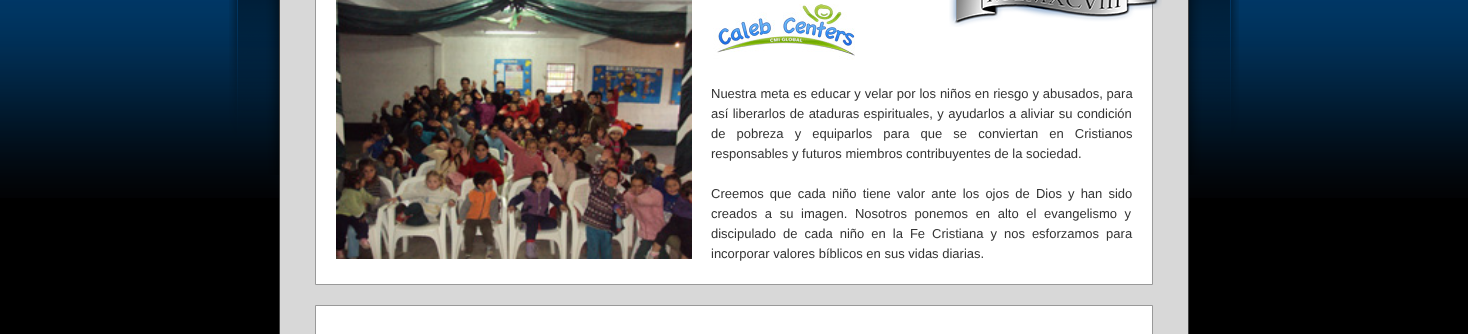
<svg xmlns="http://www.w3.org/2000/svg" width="1468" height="334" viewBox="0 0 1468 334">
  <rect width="100%" height="100%" fill="#000"/>
  <image x="0" y="0" width="1468" height="198" href="img/1.png"/>
  <image x="229" y="0" width="50" height="175" href="img/2.png"/>
  <path d="M280 0h908v334H280z" fill="#d8d8d8"/>
  <path d="M315.5 -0.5h837v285H315.5z" fill="#fff" stroke="#999"/>
  <image x="949" y="0" width="213" height="27" href="img/3.png"/>
  <path d="M1188 0h1v334H1188z" fill="#434343"/>
  <path d="M279 0h1v334H279z" fill="#434343"/>
  <image x="336" y="0" width="356" height="259" href="img/4.png"/>
  <image x="713" y="4" width="142" height="56" href="img/5.png"/>
  <path d="M315.5 305.5h837v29H315.5z" fill="#fff" stroke="#999"/>
  <image x="1189" y="0" width="50" height="175" href="img/6.png"/>
  <g font-family="Liberation Sans" font-size="13" fill="#333">
    <text x="711" y="98" word-spacing="0.25">Nuestra meta es educar y velar por los niños en riesgo y abusados, para</text>
    <text x="711" y="118" word-spacing="0.75">así liberarlos de ataduras espirituales, y ayudarlos a aliviar su condición</text>
    <text x="711" y="138" word-spacing="7.5">de pobreza y equiparlos para que se conviertan en Cristianos</text>
    <text x="711" y="158">responsables y futuros miembros contribuyentes de la sociedad.</text>
    <text x="711" y="198" word-spacing="2.5">Creemos que cada niño tiene valor ante los ojos de Dios y han sido</text>
    <text x="711" y="218" word-spacing="4">creados a su imagen. Nosotros ponemos en alto el evangelismo y</text>
    <text x="711" y="238" word-spacing="3.4">discipulado de cada niño en la Fe Cristiana y nos esforzamos para</text>
    <text x="711" y="258">incorporar valores bíblicos en sus vidas diarias.</text>
  </g>
</svg>
